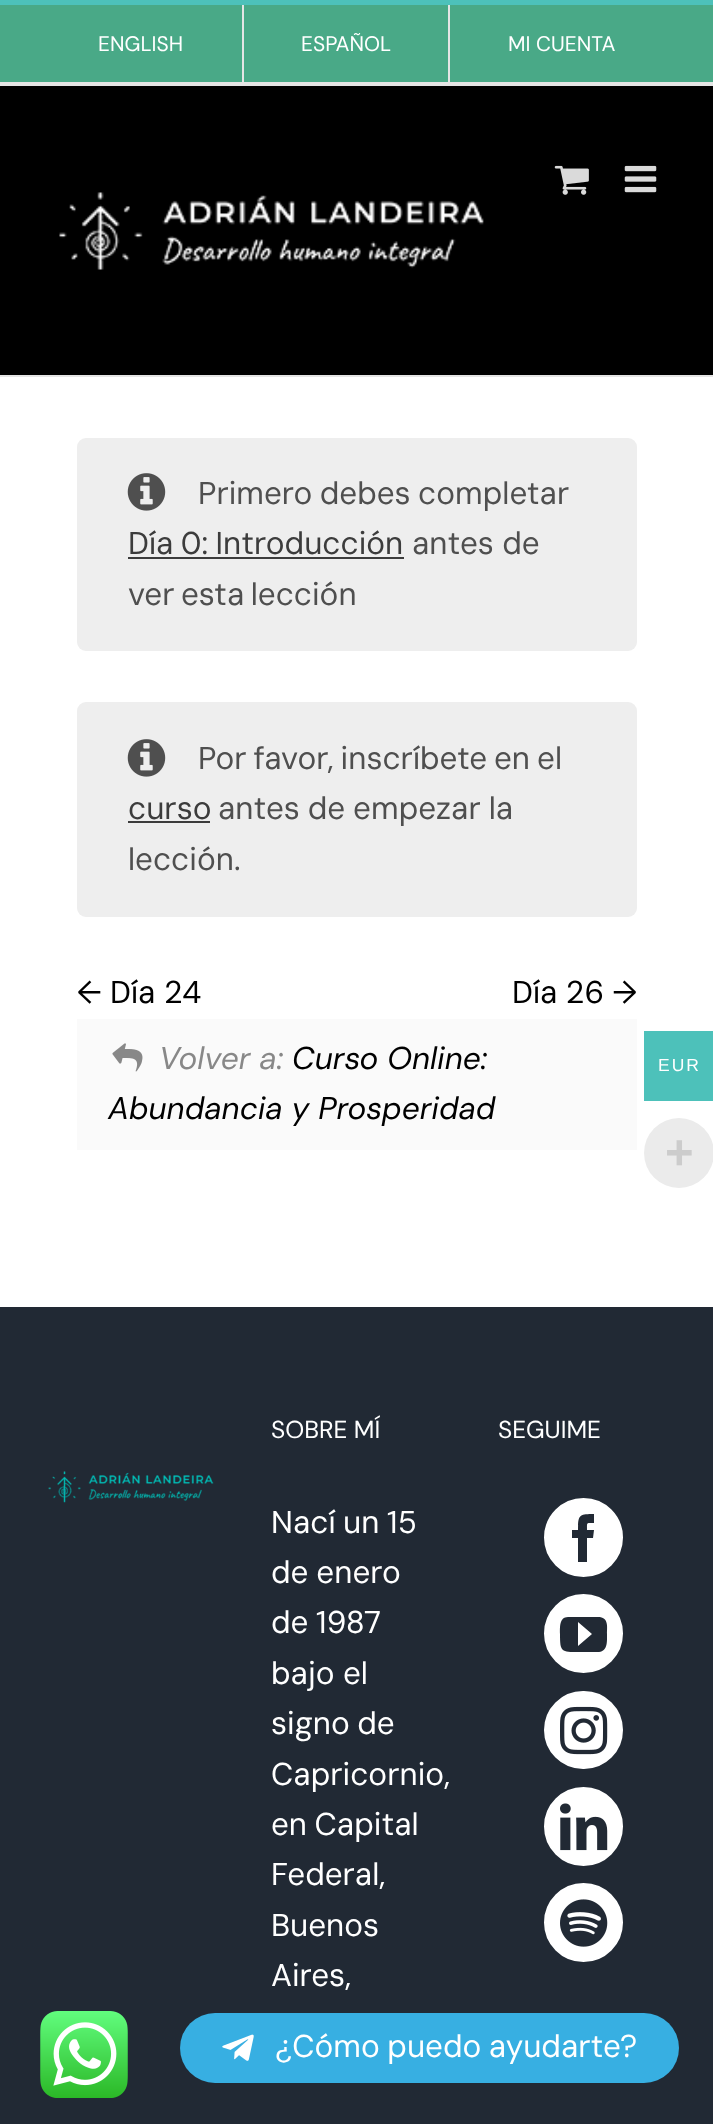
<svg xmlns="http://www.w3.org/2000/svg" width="713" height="2124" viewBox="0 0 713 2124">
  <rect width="100%" height="100%" fill="#fff"/>
  <path d="M0 5h713v77H0z" fill="#49a987"/>
  <path d="M0 0h713v5H0z" fill="#4dc1ba"/>
  <path d="M0 82h713v4H0z" fill="#e5e5e5"/>
  <path d="M242 5h2v77H242z" fill="#e5e5e5"/>
  <path d="M448 5h2v77H448z" fill="#e5e5e5"/>
  <path d="M0 86h713v289H0z" fill="#000"/>
  <path d="M0 375h713v2H0z" fill="#e5e5e5"/>
  <image x="554" y="165" width="35" height="30" href="img/1.png"/>
  <image x="624" y="165" width="33" height="28" href="img/2.png"/>
  <image x="59" y="192" width="425" height="78" href="img/3.png"/>
  <rect x="77" y="438" width="560" height="213" rx="9" fill="#eee"/>
  <image x="127" y="473" width="39" height="38" href="img/4.png"/>
  <path d="M128 557h276v2H128z" fill="#3c3c3c"/>
  <rect x="77" y="702" width="560" height="215" rx="9" fill="#eee"/>
  <image x="127" y="739" width="39" height="38" href="img/4.png"/>
  <path d="M128 821h82v2H128z" fill="#3c3c3c"/>
  <path d="M77 1019h560v131H77z" fill="#fafafa"/>
  <image x="112" y="1043" width="31" height="29" href="img/5.png"/>
  <path d="M0 1307h713v817H0z" fill="#212934"/>
  <circle cx="583.5" cy="1537.5" r="38.5" fill="#fff" stroke="#fff" stroke-width="2"/>
  <path d="M587 1562H578V1538H572V1530H578C578 1515 579 1514 594 1514V1523C586 1523 587 1522 587 1530H594L593 1538H587Z" fill="#212934"/>
  <circle cx="583.5" cy="1633.5" r="38.5" fill="#fff" stroke="#fff" stroke-width="2"/>
  <path d="M598 1617H568C559 1617 560 1628 560 1634C560 1652 561 1652 579 1652H599C608 1651 607 1641 607 1634C607 1627 609 1617 598 1617ZM578 1646V1622L592 1634Z" fill="#212934"/>
  <rect x="545" y="1692" width="77" height="76" rx="38" fill="#fff" stroke="#fff" stroke-width="2"/>
  <image x="560" y="1706" width="48" height="49" href="img/6.png"/>
  <circle cx="583.5" cy="1826.5" r="38.5" fill="#fff" stroke="#fff" stroke-width="2"/>
  <image x="560" y="1803" width="48" height="48" href="img/7.png"/>
  <circle cx="583.5" cy="1922.5" r="38.5" fill="#fff" stroke="#fff" stroke-width="2"/>
  <image x="560" y="1899" width="48" height="48" href="img/8.png"/>
  <image x="48" y="1471" width="166" height="32" href="img/9.png"/>
  <path d="M644 1031h69v70H644z" fill="#4dc1ba"/>
  <circle cx="679" cy="1153" r="35" fill="#ebebeb"/>
  <image x="40" y="2011" width="88" height="87" href="img/10.png"/>
  <rect x="180" y="2013" width="499" height="70" rx="35" fill="#37afe2"/>
  <image x="222" y="2034" width="32" height="27" href="img/11.png"/>
  <g font-family="'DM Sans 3'" font-size="21" fill="#fff">
    <text x="98" y="51">ENGLISH</text>
    <text x="301" y="51">ESPAÑOL</text>
    <text x="508" y="51">MI CUENTA</text>
  </g>
  <text x="198" y="504" word-spacing="-1" font-family="DM Sans" font-size="31.5" fill="#4f4f4f">Primero debes completar</text>
  <text x="128" y="554" word-spacing="-1" font-family="DM Sans" font-size="31.5" fill="#3c3c3c">Día 0: Introducción</text>
  <g font-family="DM Sans" font-size="31.5" fill="#4f4f4f">
    <text x="412" y="554">antes de</text>
    <text x="128" y="605" word-spacing="-2">ver esta lección</text>
    <text x="198" y="769" word-spacing="-1.5">Por favor, inscríbete en el</text>
  </g>
  <text x="128" y="819" font-family="DM Sans" font-size="31.5" fill="#3c3c3c">curso</text>
  <g font-family="DM Sans" font-size="31.5" fill="#4f4f4f">
    <text x="218" y="819" word-spacing="-0.5">antes de empezar la</text>
    <text x="128" y="870">lección.</text>
  </g>
  <g font-family="DM Sans" font-size="31.5" fill="#000">
    <text x="77" y="1003">← Día 24</text>
    <text x="512" y="1003">Día 26 →</text>
  </g>
  <text x="159" y="1069" font-family="DM Sans" font-size="31.5" font-style="italic" fill="#888">Volver a:</text>
  <g font-family="DM Sans" font-size="31.5" font-style="italic" fill="#000">
    <text x="292" y="1069">Curso Online:</text>
    <text x="108" y="1119">Abundancia y Prosperidad</text>
  </g>
  <text x="271" y="1438" font-family="'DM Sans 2'" font-size="24.5" fill="#fff">SOBRE MÍ</text>
  <g font-family="DM Sans" font-size="31.5" fill="#fff">
    <text x="271" y="1533" word-spacing="-1">Nací un 15</text>
    <text x="271" y="1583" word-spacing="-0.5">de enero</text>
    <text x="271" y="1633" word-spacing="-1">de 1987</text>
    <text x="271" y="1684">bajo el</text>
    <text x="271" y="1734" word-spacing="-1">signo de</text>
    <text x="271" y="1785">Capricornio,</text>
    <text x="271" y="1835" word-spacing="-1">en Capital</text>
    <text x="271" y="1885">Federal,</text>
    <text x="271" y="1936">Buenos</text>
    <text x="271" y="1986">Aires,</text>
  </g>
  <text x="498" y="1438" font-family="'DM Sans 2'" font-size="24.5" fill="#fff">SEGUIME</text>
  <text x="658" y="1071" font-family="Liberation Sans" font-size="17.5" letter-spacing="2" fill="#fff">EUR</text>
  <text x="665" y="1169" font-family="Liberation Sans" font-size="49" font-weight="bold" fill="#ccc">+</text>
  <text x="275" y="2057" word-spacing="-1" font-family="DM Sans" font-size="31.5" fill="#fff">¿Cómo puedo ayudarte?</text>
</svg>
